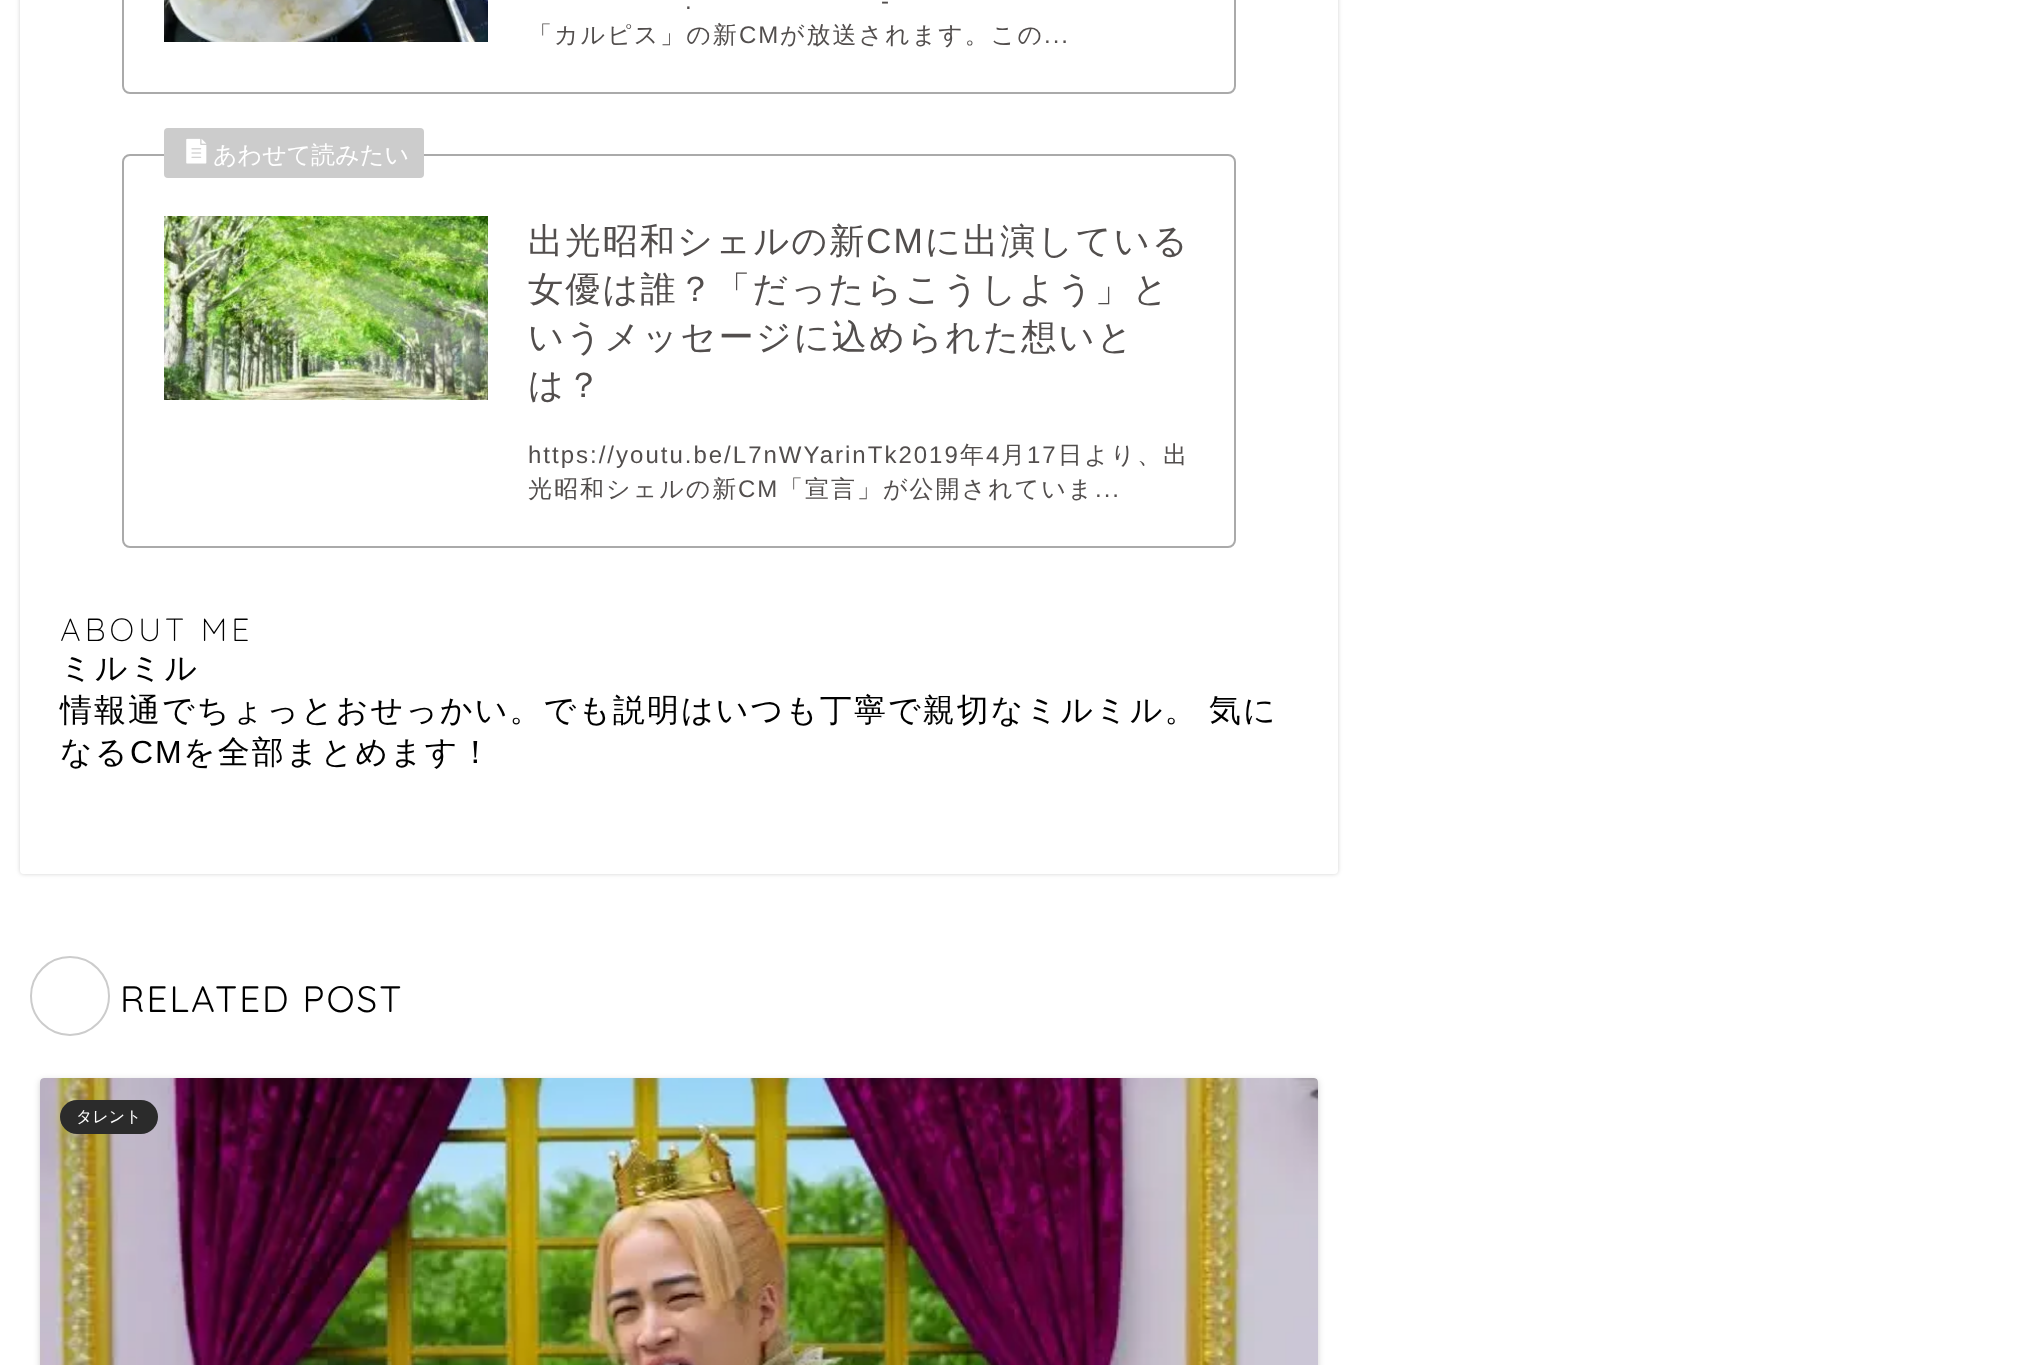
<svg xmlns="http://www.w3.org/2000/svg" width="2026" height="1365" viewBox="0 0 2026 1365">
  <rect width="100%" height="100%" fill="#fff"/>
  <rect x="20" y="-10" width="1318" height="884" rx="4" fill="#0000002e" filter="blur(2px)"/>
  <rect x="20" y="-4" width="1318" height="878" rx="4" fill="#fff"/>
  <rect x="123" y="-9" width="1112" height="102" rx="7" fill="none" stroke="#aaa" stroke-width="2"/>
  <image x="164" y="0" width="324" height="42" href="img/1.png"/>
  <rect x="123" y="155" width="1112" height="392" rx="7" fill="none" stroke="#aaa" stroke-width="2"/>
  <rect x="164" y="128" width="260" height="50" rx="4" fill="#ccc"/>
  <image x="186" y="138" width="21" height="26" href="img/2.png"/>
  <image x="164" y="216" width="324" height="184" href="img/3.png"/>
  <circle cx="70" cy="996" r="39" fill="none" stroke="#ccc" stroke-width="2"/>
  <rect x="40" y="1080" width="1278" height="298" rx="4" fill="#0000002e" filter="blur(3px)"/>
  <image x="40" y="1078" width="1278" height="287" href="img/4.png"/>
  <rect x="60" y="1100" width="98" height="34" rx="17" fill="#2b2b2b"/>
  <g font-family="Liberation Sans" font-size="24" letter-spacing="2" fill="#524e4d">
    <text x="881" y="9">-</text>
    <text x="685" y="9">.</text>
  </g>
  <text x="528" y="43" font-family="WenQuanYi Zen Hei" font-size="24" font-weight="500" letter-spacing="2" fill="#524e4d">「カルピス」の新</text>
  <text x="739" y="43" font-family="Liberation Sans" font-size="24" letter-spacing="2" fill="#524e4d">CM</text>
  <text x="780" y="43" font-family="WenQuanYi Zen Hei" font-size="24" font-weight="500" letter-spacing="2" fill="#524e4d">が放送されます。この</text>
  <text x="1044" y="43" font-family="Liberation Sans" font-size="24" letter-spacing="2" fill="#524e4d">...</text>
  <text x="213" y="163" font-family="WenQuanYi Zen Hei" font-size="24" font-weight="500" fill="#fff">あわせて読みたい</text>
  <text x="528" y="253" font-family="WenQuanYi Zen Hei" font-size="35.25" font-weight="500" letter-spacing="2" fill="#524e4d">出光昭和シェルの新</text>
  <text x="866" y="253" font-family="Liberation Sans" font-size="35.25" letter-spacing="2" fill="#524e4d">CM</text>
  <g font-family="WenQuanYi Zen Hei" font-size="35.25" font-weight="500" letter-spacing="2" fill="#524e4d">
    <text x="925" y="253">に出演している</text>
    <text x="528" y="301">女優は誰？「だったらこうしよう」と</text>
    <text x="528" y="349">いうメッセージに込められた想いと</text>
    <text x="528" y="397">は？</text>
  </g>
  <text x="528" y="463" font-family="Liberation Sans" font-size="24" letter-spacing="2" fill="#524e4d">https://youtu.be/L7nWYarinTk2019</text>
  <text x="960" y="463" font-family="WenQuanYi Zen Hei" font-size="24" font-weight="500" letter-spacing="2" fill="#524e4d">年</text>
  <text x="986" y="463" font-family="Liberation Sans" font-size="24" letter-spacing="2" fill="#524e4d">4</text>
  <text x="1001" y="463" font-family="WenQuanYi Zen Hei" font-size="24" font-weight="500" letter-spacing="2" fill="#524e4d">月</text>
  <text x="1027" y="463" font-family="Liberation Sans" font-size="24" letter-spacing="2" fill="#524e4d">17</text>
  <g font-family="WenQuanYi Zen Hei" font-size="24" font-weight="500" letter-spacing="2" fill="#524e4d">
    <text x="1058" y="463">日より、出</text>
    <text x="528" y="497">光昭和シェルの新</text>
  </g>
  <text x="738" y="497" font-family="Liberation Sans" font-size="24" letter-spacing="2" fill="#524e4d">CM</text>
  <text x="779" y="497" font-family="WenQuanYi Zen Hei" font-size="24" font-weight="500" letter-spacing="2" fill="#524e4d">「宣言」が公開されていま</text>
  <text x="1095" y="497" font-family="Liberation Sans" font-size="24" letter-spacing="2" fill="#524e4d">...</text>
  <text x="60" y="641" font-family="Quicksand" font-size="32" font-weight="300" letter-spacing="4" fill="#000">ABOUT ME</text>
  <g font-family="WenQuanYi Zen Hei" font-size="32" font-weight="500" letter-spacing="2" fill="#000">
    <text x="60" y="679">ミルミル</text>
    <text x="60" y="721" word-spacing="-1">情報通でちょっとおせっかい。でも説明はいつも丁寧で親切なミルミル。 気に</text>
    <text x="60" y="763">なる</text>
  </g>
  <text x="130" y="763" font-family="Liberation Sans" font-size="32" letter-spacing="2" fill="#000">CM</text>
  <text x="183" y="763" font-family="WenQuanYi Zen Hei" font-size="32" font-weight="500" letter-spacing="2" fill="#000">を全部まとめます！</text>
  <text x="120" y="1012" font-family="Quicksand" font-size="36.75" letter-spacing="2" fill="#000">RELATED POST</text>
  <text x="76" y="1122" font-family="WenQuanYi Zen Hei" font-size="16" font-weight="500" fill="#fff">タレント</text>
</svg>
